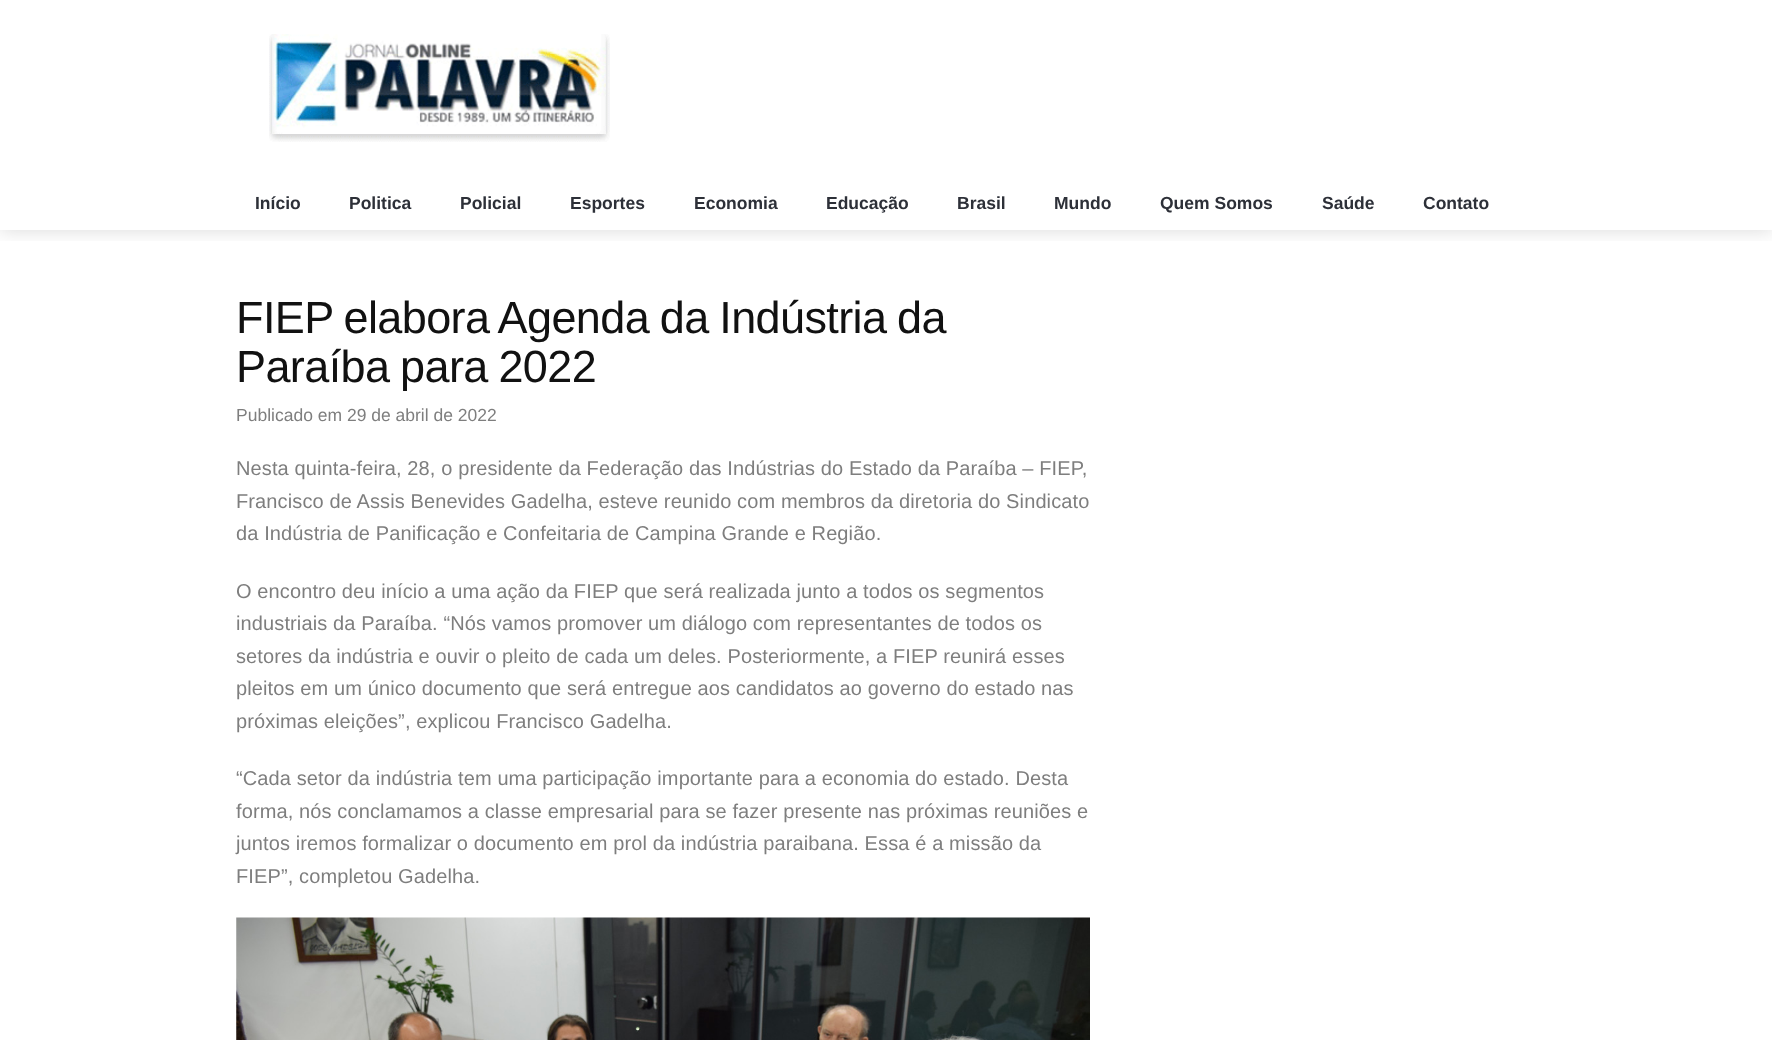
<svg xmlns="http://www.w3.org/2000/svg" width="1772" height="1040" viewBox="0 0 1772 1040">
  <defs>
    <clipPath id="clip1"><path d="M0 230h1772v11H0z"/></clipPath>
    <clipPath id="clip2"><path d="M236 293h854v98H236z"/></clipPath>
  </defs>
  <rect width="100%" height="100%" fill="#fff"/>
  <g clip-path="url(#clip1)">
    <path d="M0 0h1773v230H0z" fill="#00000026" filter="blur(9.5px)"/>
  </g>
  <image x="269" y="34" width="341" height="108" href="img/1.png"/>
  <image x="236" y="917" width="854" height="123" href="img/2.png"/>
  <g font-family="Liberation Sans" font-size="17.5" font-weight="bold" fill="#2d3038">
    <text x="255" y="209">Início</text>
    <text x="349" y="209">Politica</text>
    <text x="460" y="209">Policial</text>
    <text x="570" y="209">Esportes</text>
    <text x="694" y="209">Economia</text>
    <text x="826" y="209">Educação</text>
    <text x="957" y="209">Brasil</text>
    <text x="1054" y="209">Mundo</text>
    <text x="1160" y="209">Quem Somos</text>
    <text x="1322" y="209">Saúde</text>
    <text x="1423" y="209">Contato</text>
  </g>
  <text x="236" y="333" word-spacing="-1.25" font-family="Liberation Sans" font-size="45" letter-spacing="-0.6" fill="#111">FIEP elabora Agenda da Indústria da</text>
  <g clip-path="url(#clip2)">
    <text x="236" y="382" word-spacing="-1.25" font-family="Liberation Sans" font-size="45" letter-spacing="-0.6" fill="#111">Paraíba para 2022</text>
  </g>
  <text x="236" y="421" font-family="Liberation Sans" font-size="17.5" fill="#7e7e7e">Publicado em 29 de abril de 2022</text>
  <g font-family="Liberation Sans" font-size="20" letter-spacing="0.12" fill="#7e7e7e">
    <text x="236" y="475">Nesta quinta-feira, 28, o presidente da Federação das Indústrias do Estado da Paraíba – FIEP,</text>
    <text x="236" y="508">Francisco de Assis Benevides Gadelha, esteve reunido com membros da diretoria do Sindicato</text>
    <text x="236" y="540">da Indústria de Panificação e Confeitaria de Campina Grande e Região.</text>
    <text x="236" y="598">O encontro deu início a uma ação da FIEP que será realizada junto a todos os segmentos</text>
    <text x="236" y="630">industriais da Paraíba. “Nós vamos promover um diálogo com representantes de todos os</text>
    <text x="236" y="663">setores da indústria e ouvir o pleito de cada um deles. Posteriormente, a FIEP reunirá esses</text>
    <text x="236" y="695">pleitos em um único documento que será entregue aos candidatos ao governo do estado nas</text>
    <text x="236" y="728">próximas eleições”, explicou Francisco Gadelha.</text>
    <text x="236" y="785">“Cada setor da indústria tem uma participação importante para a economia do estado. Desta</text>
    <text x="236" y="818">forma, nós conclamamos a classe empresarial para se fazer presente nas próximas reuniões e</text>
    <text x="236" y="850">juntos iremos formalizar o documento em prol da indústria paraibana. Essa é a missão da</text>
    <text x="236" y="883">FIEP”, completou Gadelha.</text>
  </g>
</svg>
